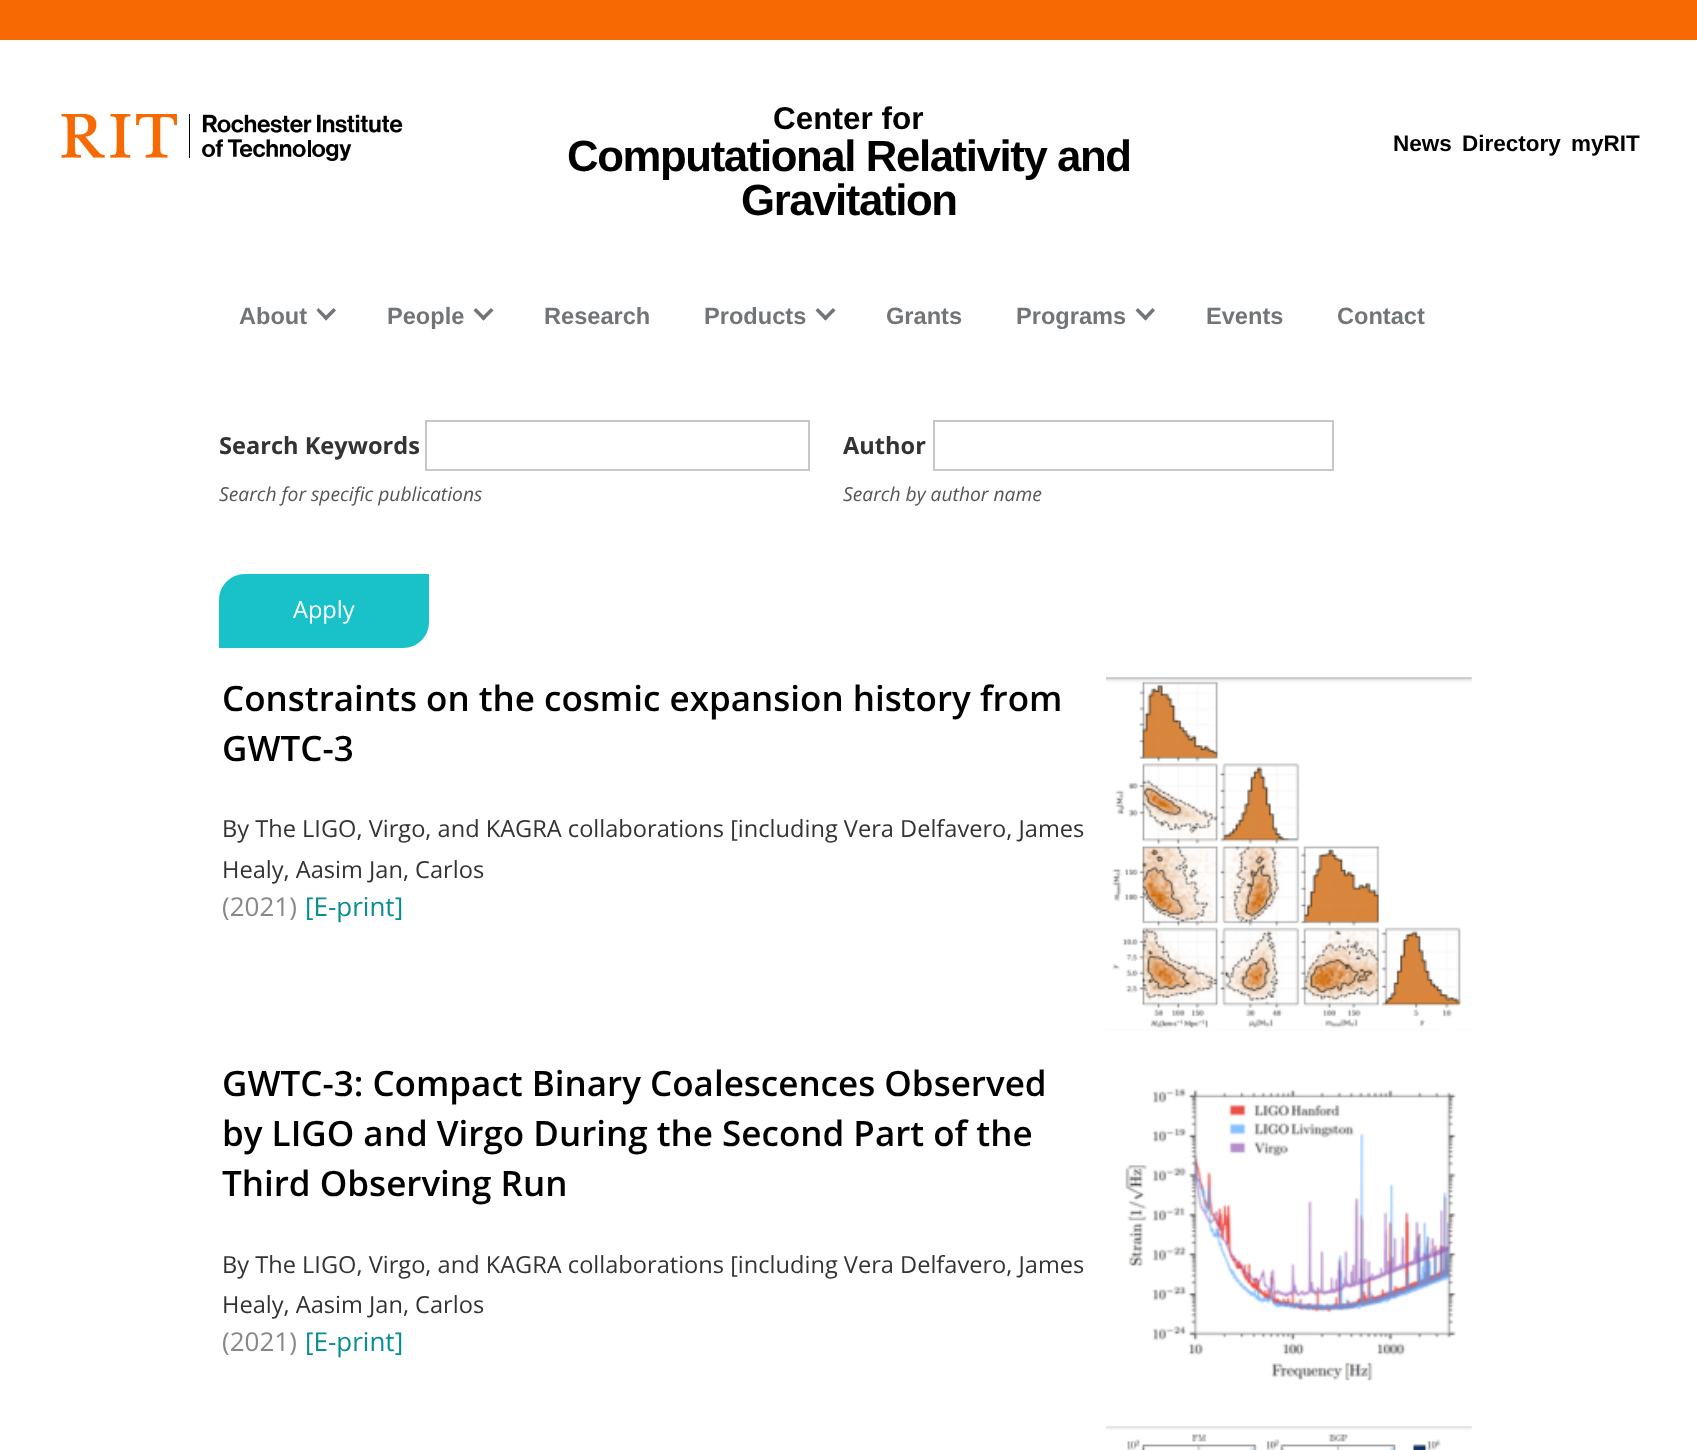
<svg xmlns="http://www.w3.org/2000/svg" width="1697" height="1450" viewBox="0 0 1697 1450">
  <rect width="100%" height="100%" fill="#fff"/>
  <path d="M0 0h1697v40H0z" fill="#f76902"/>
  <image x="61" y="114" width="342" height="47" href="img/1.png"/>
  <path d="M336 310.5L326 320.5L323.5 318L333.5 308Z" fill="#727578"/>
  <path d="M328.5 318L326 320.5L316.5 310.5L318.5 308Z" fill="#727578"/>
  <path d="M493.5 310.5L483.5 320.5L481 318L491 308Z" fill="#727578"/>
  <path d="M486 318L483.5 320.5L473.5 310.5L476 308Z" fill="#727578"/>
  <path d="M835.5 310.5L825.5 320.5L823 318L833 308Z" fill="#727578"/>
  <path d="M828 318L825.5 320.5L815.5 310.5L818 308Z" fill="#727578"/>
  <path d="M1155 310.5L1145.5 320.5L1143 318L1152.5 308Z" fill="#727578"/>
  <path d="M1148 318L1145.5 320.5L1135.5 310.5L1138 308Z" fill="#727578"/>
  <path d="M426 421h383v49H426z" fill="none" stroke="#c7c7c7" stroke-width="2"/>
  <path d="M934 421h399v49H934z" fill="none" stroke="#c7c7c7" stroke-width="2"/>
  <path d="M245 574H429V622C429 636.5 417.5 648 403 648H219V600C219 585.5 230.5 574 245 574Z" fill="#19c2c8"/>
  <image x="1106" y="677" width="366" height="354" href="img/2.png"/>
  <image x="1125" y="1088" width="331" height="293" href="img/3.png"/>
  <image x="1106" y="1426" width="366" height="24" href="img/4.png"/>
  <text x="773" y="129" font-family="Liberation Sans" font-size="31.5" font-weight="bold" fill="#000">Center for</text>
  <g font-family="Liberation Sans" font-size="43.75" font-weight="bold" letter-spacing="-1.4" fill="#000">
    <text x="567" y="171">Computational Relativity and</text>
    <text x="741" y="215">Gravitation</text>
  </g>
  <g font-family="Liberation Sans" font-size="22.5" font-weight="bold" fill="#000">
    <text x="1393" y="151">News</text>
    <text x="1462" y="151">Directory</text>
    <text x="1571" y="151">myRIT</text>
  </g>
  <g font-family="Liberation Sans" font-size="23.6" font-weight="bold" fill="#727578">
    <text x="239" y="324">About</text>
    <text x="387" y="324">People</text>
    <text x="544" y="324">Research</text>
    <text x="704" y="324">Products</text>
    <text x="886" y="324">Grants</text>
    <text x="1016" y="324">Programs</text>
    <text x="1206" y="324">Events</text>
    <text x="1337" y="324">Contact</text>
  </g>
  <text x="219" y="454" font-family="Open Sans" font-size="23.6" font-weight="bold" fill="#333">Search Keywords</text>
  <text x="219" y="501" font-family="Open Sans" font-size="19.25" font-style="italic" fill="#555">Search for specific publications</text>
  <text x="843" y="454" font-family="Open Sans" font-size="23.6" font-weight="bold" fill="#333">Author</text>
  <text x="843" y="501" font-family="Open Sans" font-size="19.25" font-style="italic" fill="#555">Search by author name</text>
  <text x="293" y="618" font-family="Open Sans" font-size="23.6" fill="#fff">Apply</text>
  <g font-family="Open Sans" font-size="35" font-weight="600" fill="#000">
    <text x="222" y="711">Constraints on the cosmic expansion history from</text>
    <text x="222" y="761">GWTC-3</text>
  </g>
  <g font-family="Open Sans" font-size="23.6" fill="#333">
    <text x="222" y="837">By The LIGO, Virgo, and KAGRA collaborations [including Vera Delfavero, James</text>
    <text x="222" y="878">Healy, Aasim Jan, Carlos</text>
  </g>
  <text x="222" y="916" font-family="Open Sans" font-size="26" fill="#888">(2021)</text>
  <text x="305" y="916" font-family="Open Sans" font-size="26" fill="#078d92">[E-print]</text>
  <g font-family="Open Sans" font-size="35" font-weight="600" fill="#000">
    <text x="222" y="1096">GWTC-3: Compact Binary Coalescences Observed</text>
    <text x="222" y="1146">by LIGO and Virgo During the Second Part of the</text>
    <text x="222" y="1196">Third Observing Run</text>
  </g>
  <g font-family="Open Sans" font-size="23.6" fill="#333">
    <text x="222" y="1273">By The LIGO, Virgo, and KAGRA collaborations [including Vera Delfavero, James</text>
    <text x="222" y="1313">Healy, Aasim Jan, Carlos</text>
  </g>
  <text x="222" y="1351" font-family="Open Sans" font-size="26" fill="#888">(2021)</text>
  <text x="305" y="1351" font-family="Open Sans" font-size="26" fill="#078d92">[E-print]</text>
</svg>
